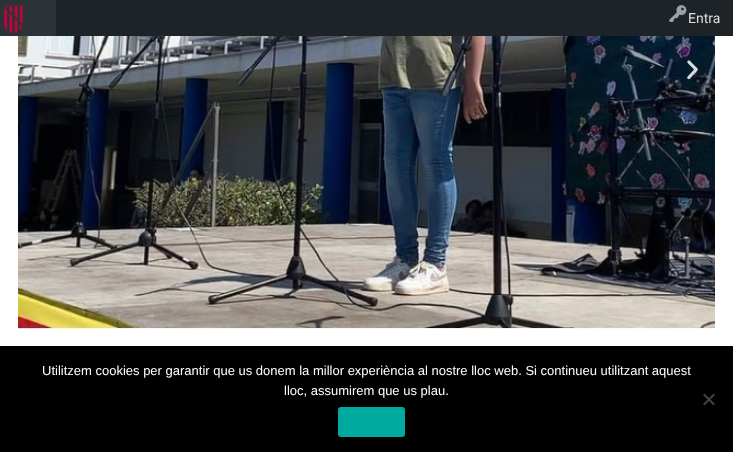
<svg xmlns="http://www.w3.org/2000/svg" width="733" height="452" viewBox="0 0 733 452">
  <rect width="100%" height="100%" fill="#fff"/>
  <path d="M56 0h677v36H56z" fill="#1d2327"/>
  <path d="M0 0h56v36H0z" fill="#2c3338"/>
  <image x="3" y="5" width="21" height="29" href="img/1.png"/>
  <image x="669" y="5" width="18" height="17" href="img/2.png"/>
  <image x="18" y="36" width="697" height="293" href="img/3.png"/>
  <image x="35" y="61" width="11" height="19" href="img/4.png"/>
  <image x="687" y="60" width="11" height="20" href="img/5.png"/>
  <path d="M0 346h733v106H0z" fill="#000"/>
  <path d="M713.5 393.5L715 395L704.5 405.5L703 404Z" fill="#404040"/>
  <path d="M703 395L704.5 393.5L715 404L713.5 405.5Z" fill="#404040"/>
  <rect x="338" y="407" width="67" height="30" rx="3" fill="#00a99d"/>
  <text x="688" y="23" font-family="Roboto" font-size="14" fill="#ddd">Entra</text>
  <g font-family="Liberation Sans" font-size="13" fill="#fff">
    <text x="42" y="375">Utilitzem cookies per garantir que us donem la millor experiència al nostre lloc web. Si continueu utilitzant aquest</text>
    <text x="284" y="395">lloc, assumirem que us plau.</text>
  </g>
</svg>
